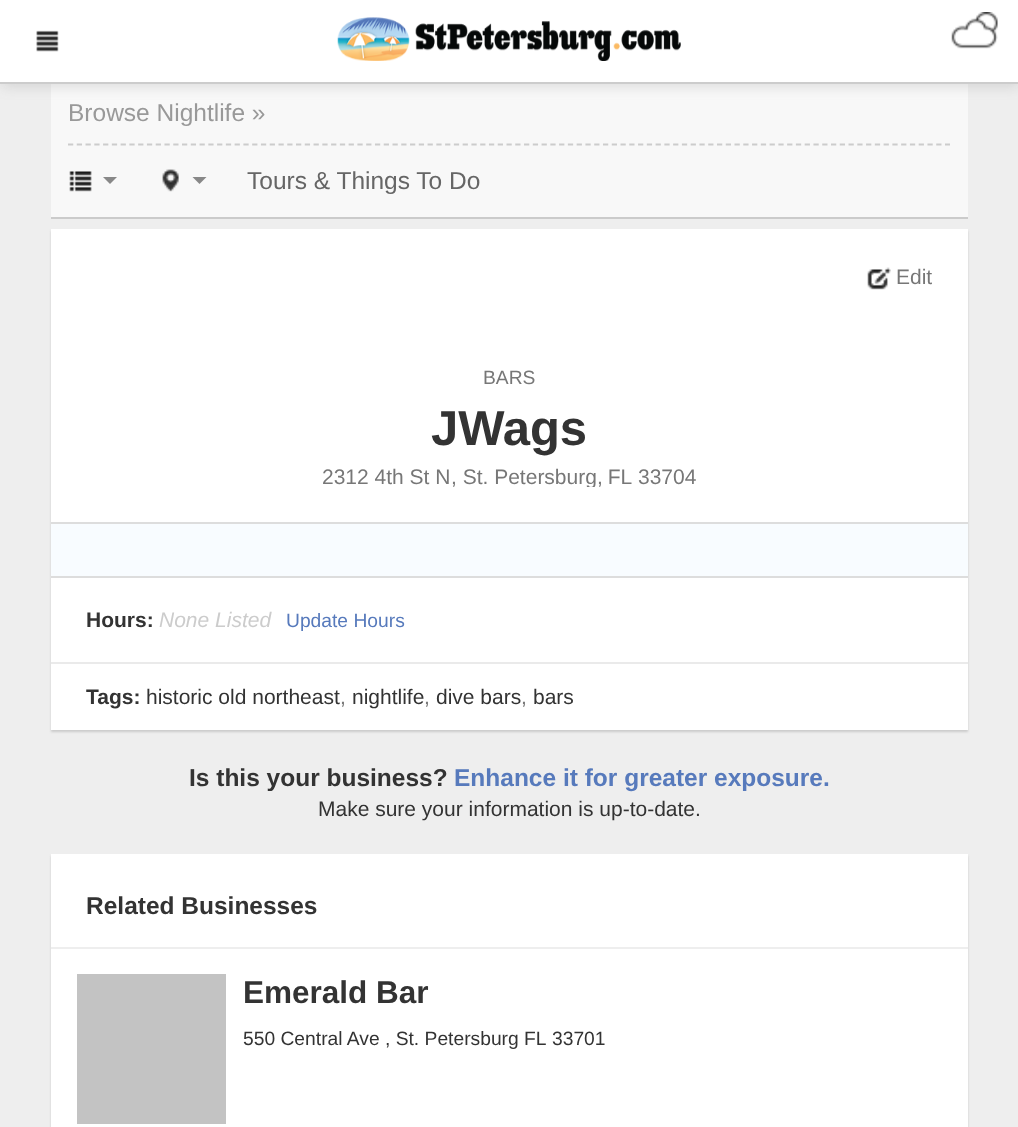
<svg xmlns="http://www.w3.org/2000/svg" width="1018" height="1127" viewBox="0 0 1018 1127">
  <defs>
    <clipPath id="clip1"><path d="M86 350h847v137H86z"/></clipPath>
  </defs>
  <rect width="100%" height="100%" fill="#eee"/>
  <path d="M51 84h917v133H51z" fill="#f8f8f8"/>
  <path d="M2 2h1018v84H2z" fill="#66666633" filter="blur(7px)"/>
  <path d="M0 0h1018v82H0z" fill="#fff"/>
  <path d="M0 82h1018v2H0z" fill="#ccc"/>
  <image x="36" y="30" width="23" height="22" href="img/1.png"/>
  <image x="337" y="17" width="344" height="44" href="img/2.png"/>
  <image x="951" y="12" width="47" height="37" href="img/3.png"/>
  <path d="M51 217h917v2H51z" fill="#cbcbcb"/>
  <path d="M68 144.5H950" fill="none" stroke="#ccc" stroke-width="1.8" stroke-dasharray="5.25 3.52"/>
  <image x="69" y="171" width="23" height="21" href="img/4.png"/>
  <path d="M103 177H117L110 184Z" fill="#888"/>
  <image x="162" y="169" width="17" height="23" href="img/5.png"/>
  <path d="M192.5 177H206.5L199.5 184Z" fill="#888"/>
  <path d="M51 231h917v501H51z" fill="#cbcbcb" filter="blur(1px)"/>
  <path d="M51 229h917v501H51z" fill="#fff"/>
  <image x="867" y="267" width="24" height="23" href="img/6.png"/>
  <path d="M51 524h917v52H51z" fill="#f8fcff"/>
  <path d="M51 522h917v2H51z" fill="#ddd"/>
  <path d="M51 576h917v2H51z" fill="#ddd"/>
  <path d="M51 662h917v2H51z" fill="#eaeaea"/>
  <path d="M51 856h917v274H51z" fill="#cbcbcb" filter="blur(1px)"/>
  <path d="M51 854h917v273H51z" fill="#fff"/>
  <path d="M51 947h917v2H51z" fill="#eee"/>
  <path d="M77 974h149v150H77z" fill="#c3c3c3"/>
  <text x="68" y="121" font-family="Liberation Sans" font-size="24.5" fill="#999">Browse Nightlife »</text>
  <text x="247" y="189" font-family="Liberation Sans" font-size="24.5" fill="#666">Tours &amp; Things To Do</text>
  <text x="896" y="284" font-family="Liberation Sans" font-size="21" fill="#777">Edit</text>
  <text x="483" y="384" font-family="Liberation Sans" font-size="19.25" fill="#777">BARS</text>
  <text x="431" y="445" font-family="Liberation Sans" font-size="49" font-weight="bold" fill="#333">JWags</text>
  <text x="322" y="484" font-family="Liberation Sans" font-size="21" fill="#777">2312 4th St N</text>
  <g clip-path="url(#clip1)">
    <text x="451" y="484" font-family="Liberation Sans" font-size="21" fill="#777">, St. Petersburg</text>
  </g>
  <g font-family="Liberation Sans" font-size="21" fill="#777">
    <text x="597" y="484" word-spacing="-1">, FL</text>
    <text x="638" y="484">33704</text>
  </g>
  <text x="86" y="627" font-family="Liberation Sans" font-size="21" font-weight="bold" fill="#333">Hours:</text>
  <text x="159" y="627" font-family="Liberation Sans" font-size="21" font-style="italic" fill="#ccc">None Listed</text>
  <text x="286" y="627" font-family="Liberation Sans" font-size="19.25" fill="#577abc">Update Hours</text>
  <text x="86" y="704" font-family="Liberation Sans" font-size="21" font-weight="bold" fill="#333">Tags:</text>
  <text x="146" y="704" font-family="Liberation Sans" font-size="21" fill="#333">historic old northeast</text>
  <text x="340" y="704" font-family="Liberation Sans" font-size="21" fill="#777">,</text>
  <text x="352" y="704" font-family="Liberation Sans" font-size="21" fill="#333">nightlife</text>
  <text x="424" y="704" font-family="Liberation Sans" font-size="21" fill="#777">,</text>
  <text x="436" y="704" font-family="Liberation Sans" font-size="21" fill="#333">dive bars</text>
  <text x="521" y="704" font-family="Liberation Sans" font-size="21" fill="#777">,</text>
  <text x="533" y="704" font-family="Liberation Sans" font-size="21" fill="#333">bars</text>
  <text x="189" y="786" font-family="Liberation Sans" font-size="24.5" font-weight="bold" fill="#333">Is this your business?</text>
  <text x="454" y="786" font-family="Liberation Sans" font-size="24.5" font-weight="bold" fill="#577abc">Enhance it for greater exposure.</text>
  <text x="318" y="816" font-family="Liberation Sans" font-size="21" fill="#333">Make sure your information is up-to-date.</text>
  <text x="86" y="914" font-family="Liberation Sans" font-size="24.5" font-weight="bold" fill="#333">Related Businesses</text>
  <text x="243" y="1003" font-family="Liberation Sans" font-size="31.5" font-weight="bold" fill="#333">Emerald Bar</text>
  <g font-family="Liberation Sans" font-size="19.25" fill="#333">
    <text x="243" y="1045">550 Central Ave , St. Petersburg FL</text>
    <text x="552" y="1045">33701</text>
  </g>
</svg>
